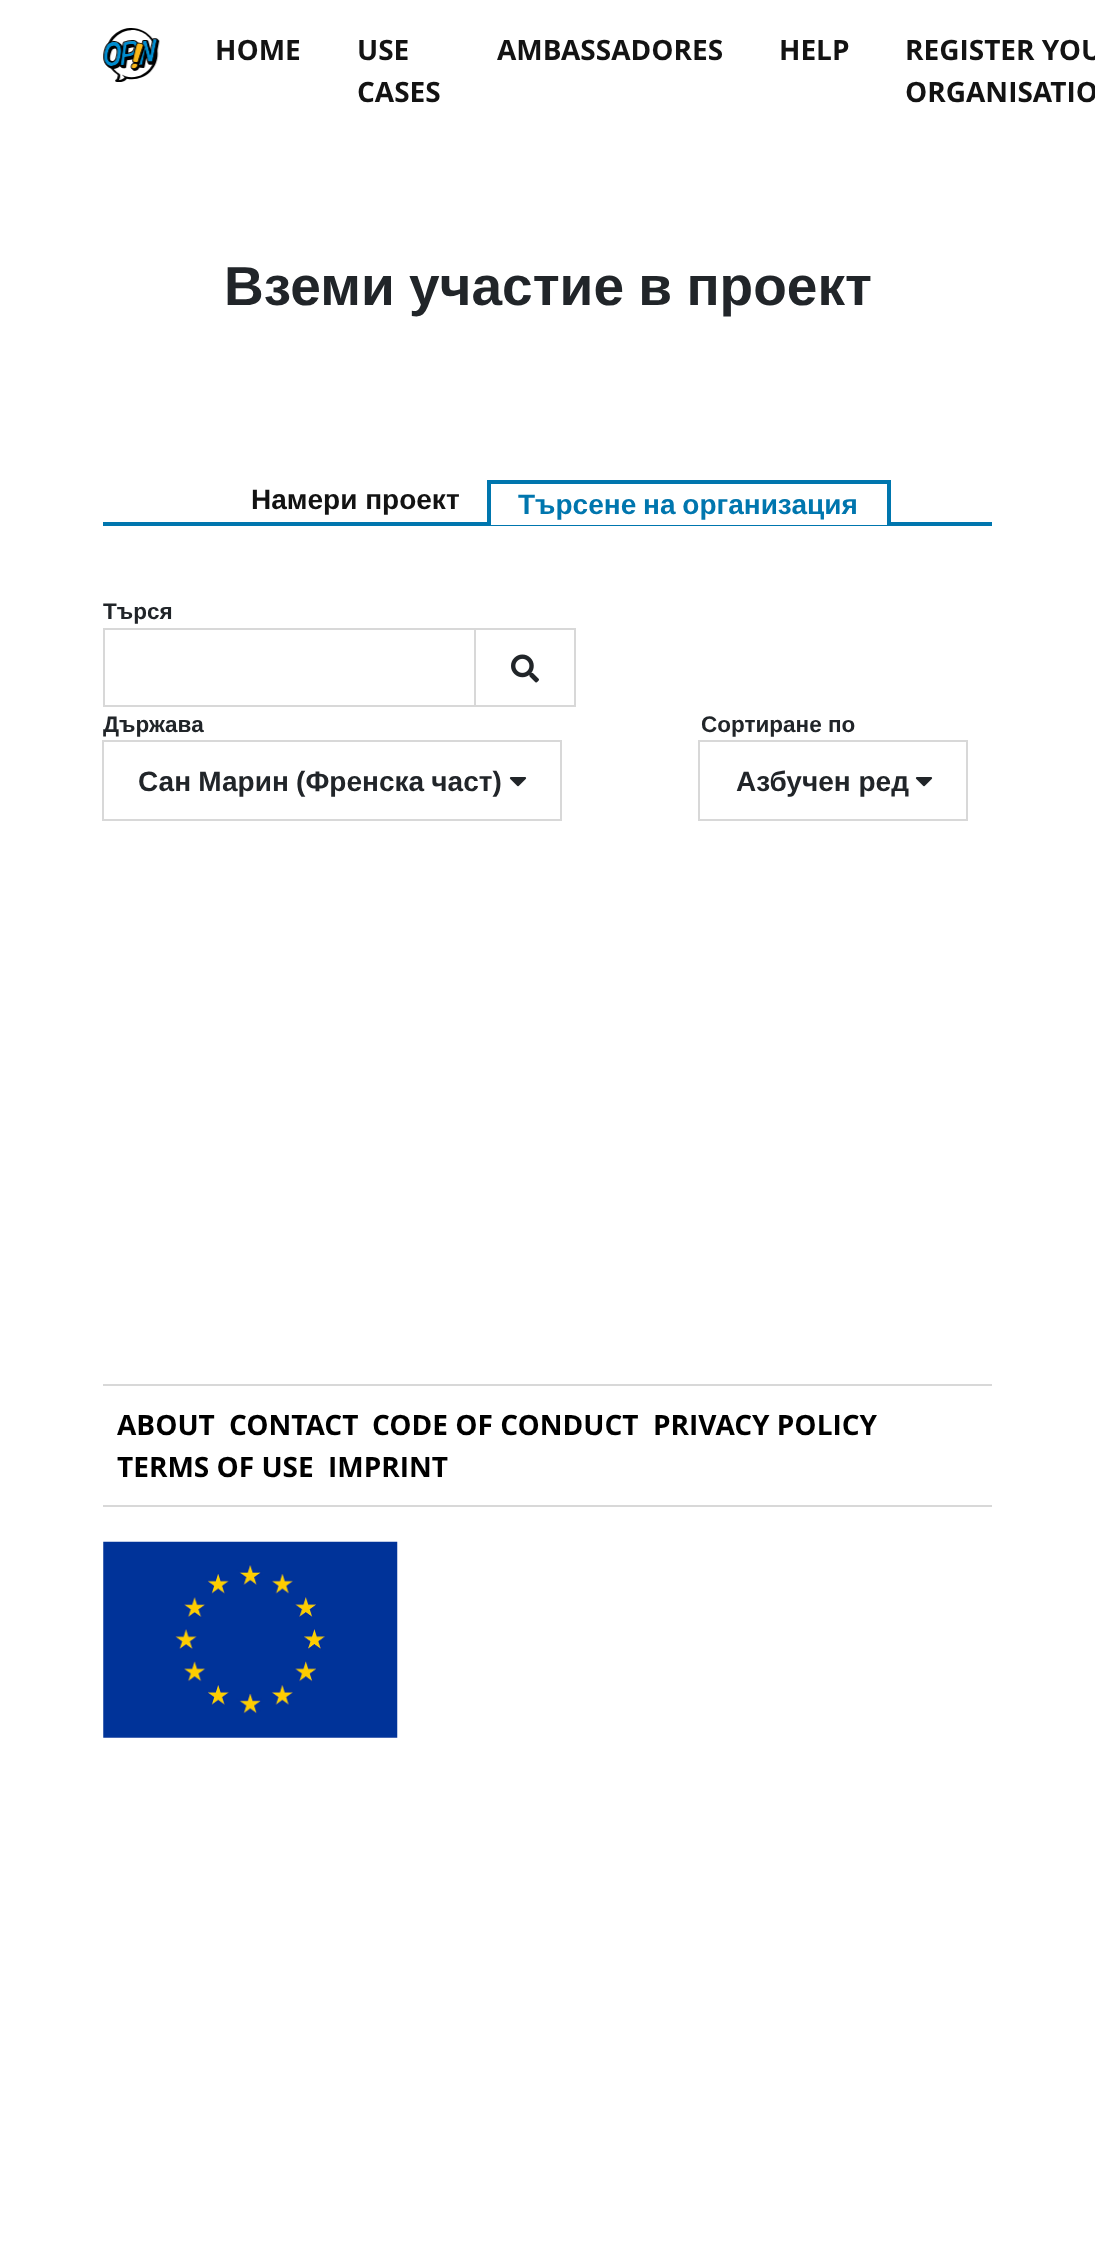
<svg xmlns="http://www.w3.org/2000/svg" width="1095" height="2254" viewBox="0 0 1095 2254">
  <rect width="100%" height="100%" fill="#fff"/>
  <image x="103" y="28" width="57" height="54" href="img/1.png"/>
  <path d="M103 522h889v4H103z" fill="#0076ae"/>
  <path d="M491 522h396v3H491z" fill="#fff"/>
  <path d="M487 480h404v4H487z" fill="#0076ae"/>
  <path d="M887 480h4v45H887z" fill="#0076ae"/>
  <path d="M487 480h4v45H487z" fill="#0076ae"/>
  <path d="M103 628h371v2H103z" fill="#d8d8d8"/>
  <path d="M103 705h371v2H103z" fill="#d8d8d8"/>
  <path d="M103 628h2v79H103z" fill="#d8d8d8"/>
  <path d="M475 629h100v77H475z" fill="none" stroke="#d8d8d8" stroke-width="2"/>
  <image x="511" y="654" width="28" height="29" href="img/2.png"/>
  <path d="M103 741h458v79H103z" fill="none" stroke="#d8d8d8" stroke-width="2"/>
  <image x="509" y="777" width="18" height="10" href="img/3.png"/>
  <path d="M699 741h268v79H699z" fill="none" stroke="#d8d8d8" stroke-width="2"/>
  <image x="915" y="777" width="18" height="10" href="img/3.png"/>
  <path d="M103 1384h889v2H103z" fill="#d8d8d8"/>
  <path d="M103 1505h889v2H103z" fill="#d8d8d8"/>
  <image x="103" y="1541" width="295" height="197" href="img/4.png"/>
  <g font-family="Open Sans" font-size="28" font-weight="bold" fill="#131313">
    <text x="215" y="60">HOME</text>
    <text x="357" y="60">USE</text>
    <text x="357" y="102">CASES</text>
    <text x="497" y="60">AMBASSADORES</text>
    <text x="779" y="60">HELP</text>
    <text x="905" y="60">REGISTER YOU</text>
    <text x="905" y="102">ORGANISATIO</text>
  </g>
  <text x="224" y="305" word-spacing="-1" font-family="Liberation Sans" font-size="55" font-weight="bold" fill="#212529">Вземи участие в проект</text>
  <text x="251" y="509" font-family="Liberation Sans" font-size="28" font-weight="bold" fill="#131313">Намери проект</text>
  <text x="518" y="514" word-spacing="-1" font-family="Liberation Sans" font-size="28" font-weight="bold" fill="#0076ae">Търсене на организация</text>
  <g font-family="Liberation Sans" font-size="22.5" font-weight="bold" fill="#212529">
    <text x="103" y="619">Търся</text>
    <text x="103" y="732">Държава</text>
  </g>
  <text x="138" y="791" word-spacing="-0.5" font-family="Liberation Sans" font-size="28" font-weight="bold" fill="#212529">Сан Марин (Френска част)</text>
  <text x="701" y="732" font-family="Liberation Sans" font-size="22.5" font-weight="bold" fill="#212529">Сортиране по</text>
  <text x="736" y="791" font-family="Liberation Sans" font-size="28" font-weight="bold" fill="#212529">Азбучен ред</text>
  <g font-family="Open Sans" font-size="28" font-weight="bold" fill="#000">
    <text x="117" y="1435">ABOUT</text>
    <text x="229" y="1435">CONTACT</text>
    <text x="372" y="1435">CODE OF CONDUCT</text>
    <text x="653" y="1435">PRIVACY POLICY</text>
    <text x="117" y="1477">TERMS OF USE</text>
    <text x="328" y="1477">IMPRINT</text>
  </g>
</svg>
